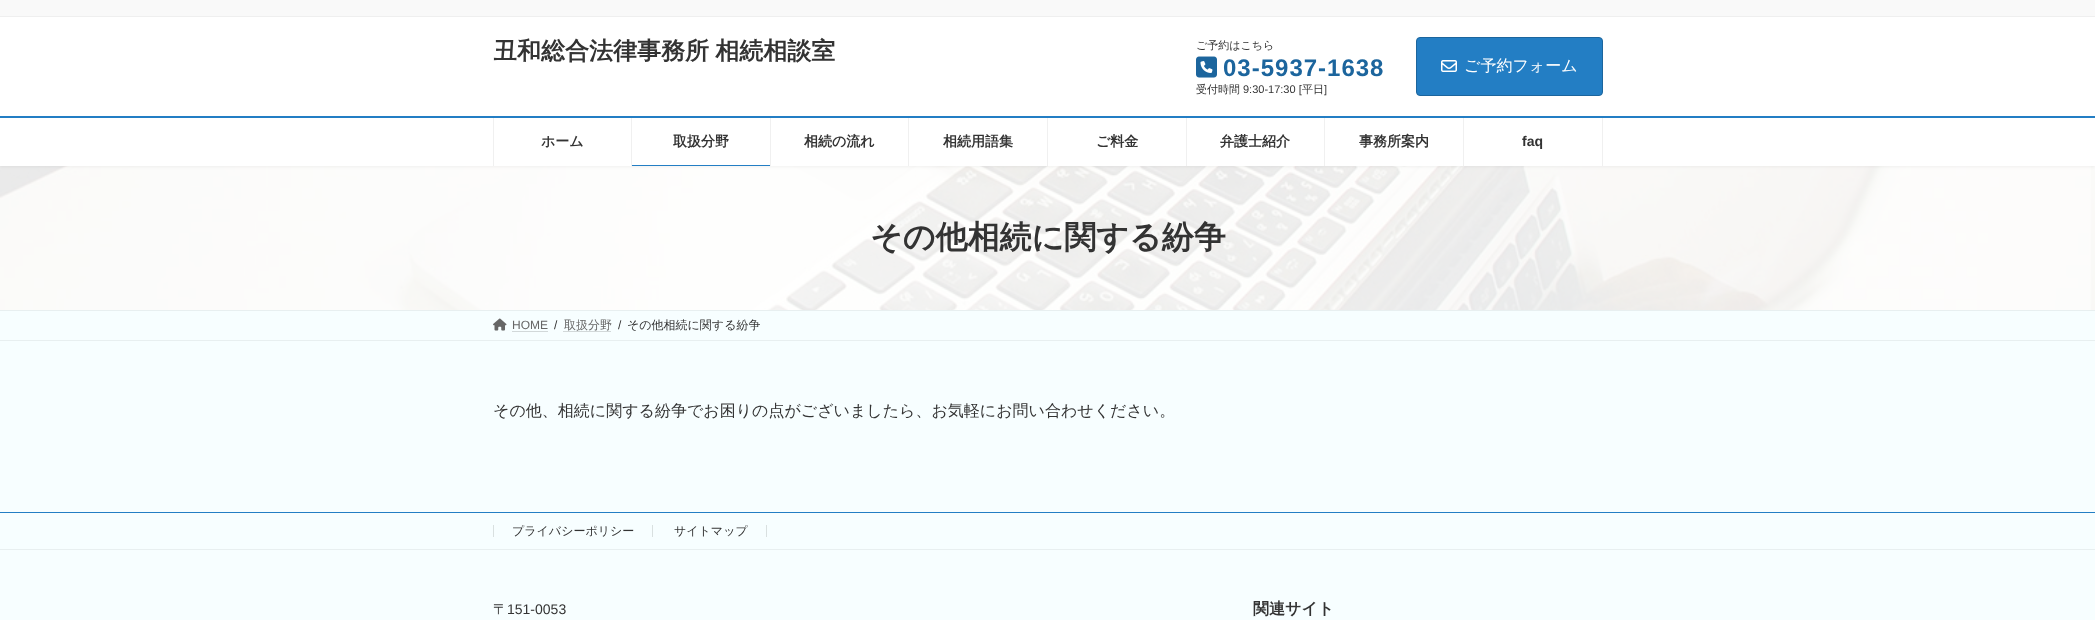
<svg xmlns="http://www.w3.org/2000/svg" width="2095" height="620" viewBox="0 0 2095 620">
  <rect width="100%" height="100%" fill="#f7feff"/>
  <image x="0" y="166" width="2095" height="144" href="img/3.png"/>
  <path d="M0 -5h2095v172H0z" fill="#0000000d" filter="blur(1.5px)"/>
  <path d="M0 17h2095v149H0z" fill="#fff"/>
  <path d="M0 0h2095v16H0z" fill="#f9f9f9"/>
  <path d="M0 16h2095v1H0z" fill="#efefef"/>
  <image x="1196" y="56" width="21" height="22" href="img/1.png"/>
  <rect x="1416.5" y="37.5" width="186" height="58" rx="3.5" fill="#237ec4" stroke="#1c659d"/>
  <image x="1441" y="60" width="16" height="12" href="img/2.png"/>
  <path d="M0 116h2095v2H0z" fill="#237ec4"/>
  <path d="M631 118h1v48H631z" fill="#f0f0f0"/>
  <path d="M493 118h1v48H493z" fill="#f0f0f0"/>
  <path d="M770 118h1v48H770z" fill="#f0f0f0"/>
  <path d="M632 165h138v1H632z" fill="#237ec4"/>
  <path d="M908 118h1v48H908z" fill="#f0f0f0"/>
  <path d="M1047 118h1v48H1047z" fill="#f0f0f0"/>
  <path d="M1186 118h1v48H1186z" fill="#f0f0f0"/>
  <path d="M1324 118h1v48H1324z" fill="#f0f0f0"/>
  <path d="M1463 118h1v48H1463z" fill="#f0f0f0"/>
  <path d="M1602 118h1v48H1602z" fill="#f0f0f0"/>
  <path d="M0 310h2095v1H0z" fill="#e8eff0"/>
  <path d="M0 340h2095v1H0z" fill="#e8eff0"/>
  <image x="493" y="318" width="14" height="13" href="img/4.png"/>
  <path d="M512.5 331.5H548.5" fill="none" stroke="#adb2b3" stroke-dasharray="1 1"/>
  <path d="M563.5 331.5H611.5" fill="none" stroke="#adb2b3" stroke-dasharray="1 1"/>
  <path d="M0 512h2095v1H0z" fill="#237ec4"/>
  <path d="M0 549h2095v1H0z" fill="#e8eff0"/>
  <path d="M652 525h1v12H652z" fill="#d9e0e0"/>
  <path d="M493 525h1v12H493z" fill="#d9e0e0"/>
  <path d="M766 525h1v12H766z" fill="#d9e0e0"/>
  <text x="493" y="59" word-spacing="-1" font-family="WenQuanYi Zen Hei" font-size="24" font-weight="bold" fill="#333">丑和総合法律事務所 相続相談室</text>
  <text x="1196" y="49" font-family="WenQuanYi Zen Hei" font-size="11" font-weight="500" fill="#333">ご予約はこちら</text>
  <text x="1223" y="76" font-family="Liberation Sans" font-size="24" font-weight="bold" letter-spacing="1" fill="#1c659d">03-5937-1638</text>
  <text x="1196" y="93" font-family="WenQuanYi Zen Hei" font-size="11" font-weight="500" fill="#333">受付時間</text>
  <text x="1243" y="93" font-family="Liberation Sans" font-size="11" fill="#333">9:30-17:30 [</text>
  <text x="1302" y="93" font-family="WenQuanYi Zen Hei" font-size="11" font-weight="500" fill="#333">平日</text>
  <text x="1324" y="93" font-family="Liberation Sans" font-size="11" fill="#333">]</text>
  <text x="1464" y="71" font-family="WenQuanYi Zen Hei" font-size="16" font-weight="500" fill="#fff">ご予約フォーム</text>
  <g font-family="WenQuanYi Zen Hei" font-size="14" font-weight="bold" fill="#333">
    <text x="541" y="146">ホーム</text>
    <text x="673" y="146">取扱分野</text>
    <text x="804" y="146">相続の流れ</text>
    <text x="943" y="146">相続用語集</text>
    <text x="1096" y="146">ご料金</text>
    <text x="1220" y="146">弁護士紹介</text>
    <text x="1359" y="146">事務所案内</text>
  </g>
  <text x="1522" y="146" font-family="Liberation Sans" font-size="14" font-weight="bold" fill="#333">faq</text>
  <text x="870" y="248" font-family="WenQuanYi Zen Hei" font-size="32" font-weight="bold" fill="#333">その他相続に関する紛争</text>
  <text x="512" y="329" font-family="Liberation Sans" font-size="12" fill="#666">HOME</text>
  <text x="554" y="329" font-family="Liberation Sans" font-size="12" fill="#333">/</text>
  <text x="564" y="329" font-family="WenQuanYi Zen Hei" font-size="12" font-weight="500" fill="#666">取扱分野</text>
  <text x="618" y="329" font-family="Liberation Sans" font-size="12" fill="#333">/</text>
  <text x="627" y="329" font-family="WenQuanYi Zen Hei" font-size="12" font-weight="500" fill="#333">その他相続に関する紛争</text>
  <text x="493" y="416" font-family="WenQuanYi Zen Hei" font-size="16" font-weight="500" fill="#333">その他、相続に関する紛争でお困りの点がございましたら、お気軽にお問い合わせください。</text>
  <g font-family="WenQuanYi Zen Hei" font-size="12" font-weight="500" fill="#333">
    <text x="512" y="535">プライバシーポリシー</text>
    <text x="674" y="535">サイトマップ</text>
  </g>
  <text x="493" y="614" font-family="WenQuanYi Zen Hei" font-size="14" font-weight="500" fill="#333">〒</text>
  <text x="507" y="614" font-family="Liberation Sans" font-size="14" fill="#333">151-0053</text>
  <text x="1253" y="614" font-family="WenQuanYi Zen Hei" font-size="16" font-weight="bold" fill="#333">関連サイト</text>
</svg>
